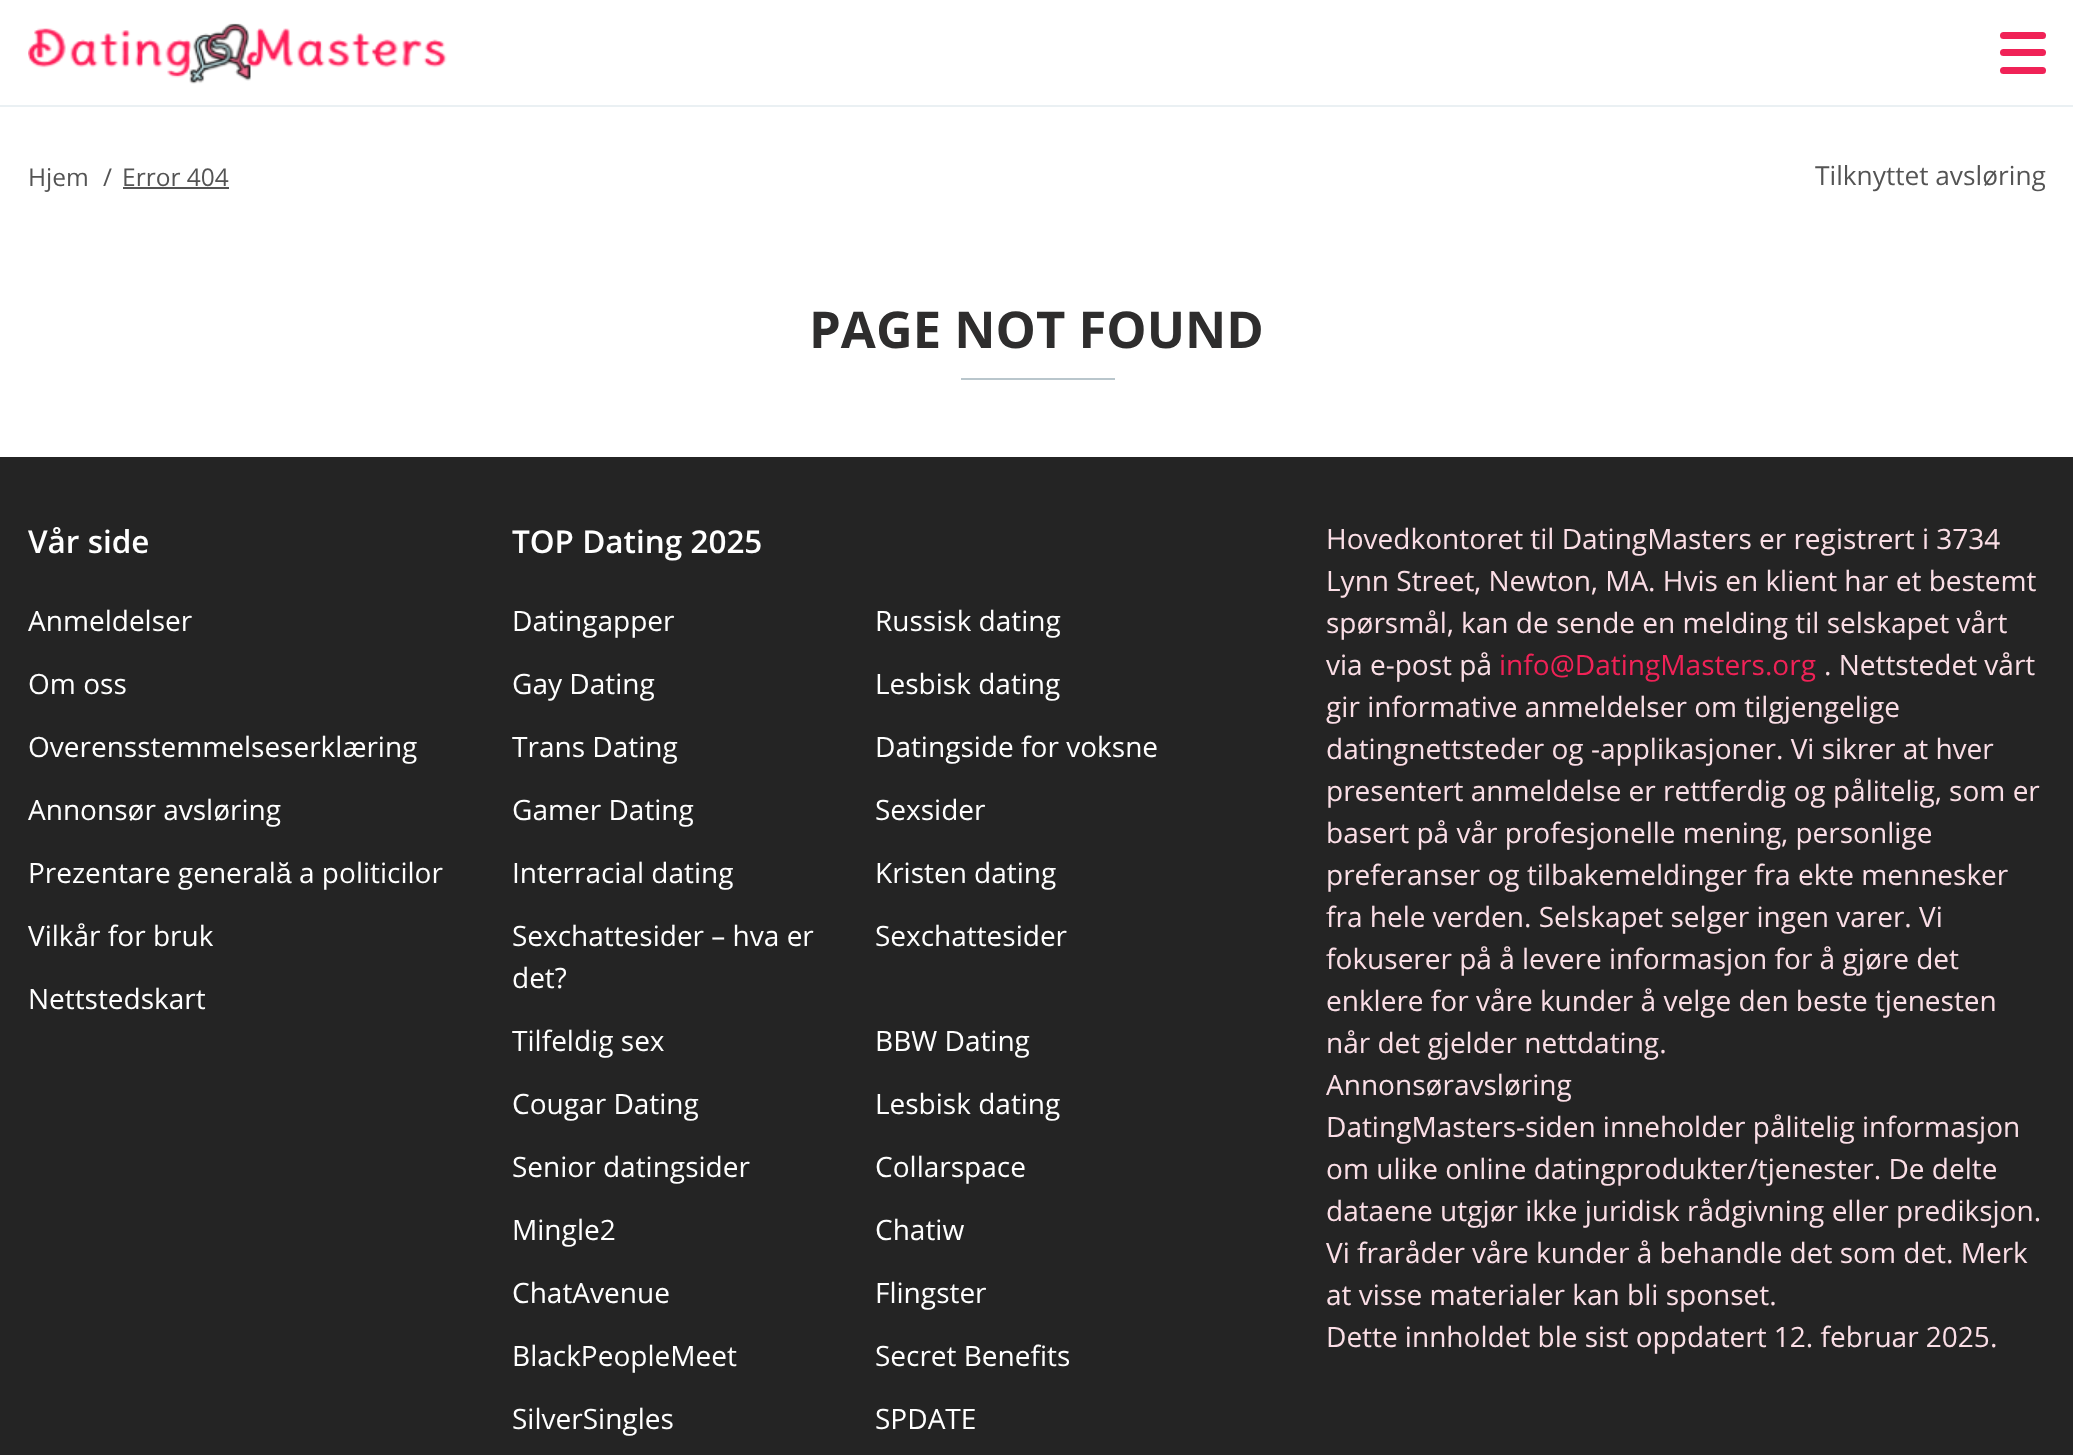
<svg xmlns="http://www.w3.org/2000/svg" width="2073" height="1455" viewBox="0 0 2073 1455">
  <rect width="100%" height="100%" fill="#fff"/>
  <path d="M0 105h2073v2H0z" fill="#eaf0f3"/>
  <image x="28" y="23" width="419" height="61" href="img/1.png"/>
  <rect x="2000" y="32" width="46" height="7" rx="3.5" fill="#f02257"/>
  <rect x="2000" y="49" width="46" height="7" rx="3.5" fill="#f02257"/>
  <rect x="2000" y="67" width="46" height="7" rx="3.5" fill="#f02257"/>
  <path d="M123 187h106v2H123z" fill="#545454"/>
  <path d="M961 378h154v2H961z" fill="#b9c6cc"/>
  <path d="M0 457h2073v998H0z" fill="#242424"/>
  <g font-family="Open Sans" font-size="24.5" fill="#545454">
    <text x="28" y="186">Hjem</text>
    <text x="103" y="186">/</text>
    <text x="122" y="186">Error 404</text>
  </g>
  <text x="1815" y="185" font-family="Open Sans" font-size="26.25" fill="#545454">Tilknyttet avsløring</text>
  <text x="809" y="348" font-family="Open Sans" font-size="50.75" font-weight="bold" fill="#2e2d2d">PAGE NOT FOUND</text>
  <text x="28" y="553" font-family="Open Sans" font-size="31.5" font-weight="600" fill="#fff">Vår side</text>
  <g font-family="Open Sans" font-size="28" fill="#fff">
    <text x="28" y="631">Anmeldelser</text>
    <text x="28" y="694">Om oss</text>
    <text x="28" y="757">Overensstemmelseserklæring</text>
    <text x="28" y="820">Annonsør avsløring</text>
    <text x="28" y="883">Prezentare general</text>
  </g>
  <text x="276" y="883" font-family="Liberation Sans" font-size="28" fill="#fff">ă</text>
  <g font-family="Open Sans" font-size="28" fill="#fff">
    <text x="299" y="883">a politicilor</text>
    <text x="28" y="946">Vilkår for bruk</text>
    <text x="28" y="1009">Nettstedskart</text>
  </g>
  <text x="512" y="553" font-family="Open Sans" font-size="31.5" font-weight="600" fill="#fff">TOP Dating 2025</text>
  <g font-family="Open Sans" font-size="28" fill="#fff">
    <text x="512" y="631">Datingapper</text>
    <text x="875" y="631">Russisk dating</text>
    <text x="512" y="694">Gay Dating</text>
    <text x="875" y="694">Lesbisk dating</text>
    <text x="512" y="757">Trans Dating</text>
    <text x="875" y="757">Datingside for voksne</text>
    <text x="512" y="820">Gamer Dating</text>
    <text x="875" y="820">Sexsider</text>
    <text x="512" y="883">Interracial dating</text>
    <text x="875" y="883">Kristen dating</text>
    <text x="512" y="946">Sexchattesider – hva er</text>
    <text x="512" y="988">det?</text>
    <text x="875" y="946">Sexchattesider</text>
    <text x="512" y="1051">Tilfeldig sex</text>
    <text x="875" y="1051">BBW Dating</text>
    <text x="512" y="1114">Cougar Dating</text>
    <text x="875" y="1114">Lesbisk dating</text>
    <text x="512" y="1177">Senior datingsider</text>
    <text x="875" y="1177">Collarspace</text>
    <text x="512" y="1240">Mingle2</text>
    <text x="875" y="1240">Chatiw</text>
    <text x="512" y="1303">ChatAvenue</text>
    <text x="875" y="1303">Flingster</text>
    <text x="512" y="1366">BlackPeopleMeet</text>
    <text x="875" y="1366">Secret Benefits</text>
    <text x="512" y="1429">SilverSingles</text>
    <text x="875" y="1429">SPDATE</text>
  </g>
  <g font-family="Open Sans" font-size="28" fill="#fbdee6">
    <text x="1326" y="549">Hovedkontoret til DatingMasters er registrert i 3734</text>
    <text x="1326" y="591">Lynn Street, Newton, MA. Hvis en klient har et bestemt</text>
    <text x="1326" y="633">spørsmål, kan de sende en melding til selskapet vårt</text>
    <text x="1326" y="675">via e-post på</text>
  </g>
  <text x="1499" y="675" font-family="Open Sans" font-size="28" fill="#f02257">info@DatingMasters.org</text>
  <g font-family="Open Sans" font-size="28" fill="#fbdee6">
    <text x="1824" y="675">. Nettstedet vårt</text>
    <text x="1326" y="717">gir informative anmeldelser om tilgjengelige</text>
    <text x="1326" y="759">datingnettsteder og -applikasjoner. Vi sikrer at hver</text>
    <text x="1326" y="801">presentert anmeldelse er rettferdig og pålitelig, som er</text>
    <text x="1326" y="843">basert på vår profesjonelle mening, personlige</text>
    <text x="1326" y="885">preferanser og tilbakemeldinger fra ekte mennesker</text>
    <text x="1326" y="927">fra hele verden. Selskapet selger ingen varer. Vi</text>
    <text x="1326" y="969">fokuserer på å levere informasjon for å gjøre det</text>
    <text x="1326" y="1011">enklere for våre kunder å velge den beste tjenesten</text>
    <text x="1326" y="1053">når det gjelder nettdating.</text>
    <text x="1326" y="1095">Annonsøravsløring</text>
    <text x="1326" y="1137">DatingMasters-siden inneholder pålitelig informasjon</text>
    <text x="1326" y="1179">om ulike online datingprodukter/tjenester. De delte</text>
    <text x="1326" y="1221">dataene utgjør ikke juridisk rådgivning eller prediksjon.</text>
    <text x="1326" y="1263">Vi fraråder våre kunder å behandle det som det. Merk</text>
    <text x="1326" y="1305">at visse materialer kan bli sponset.</text>
    <text x="1326" y="1347">Dette innholdet ble sist oppdatert 12. februar 2025.</text>
  </g>
</svg>
